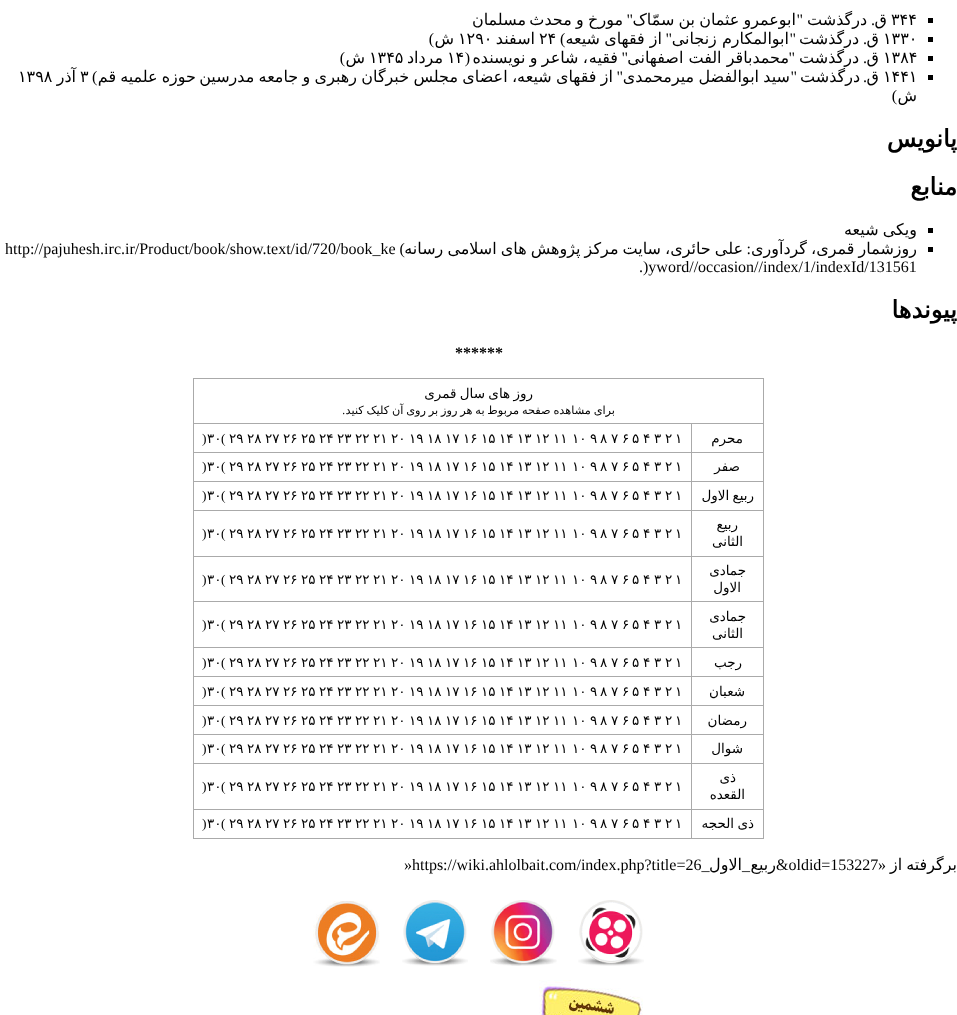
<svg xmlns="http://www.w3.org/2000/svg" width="957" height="1015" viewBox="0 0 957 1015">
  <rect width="100%" height="100%" fill="#fff"/>
  <path d="M928 18h5v5H928z" fill="#000"/>
  <path d="M928 37h5v5H928z" fill="#000"/>
  <path d="M928 56h5v5H928z" fill="#000"/>
  <path d="M928 75h5v5H928z" fill="#000"/>
  <path d="M928 228h5v5H928z" fill="#000"/>
  <path d="M928 247h5v5H928z" fill="#000"/>
  <path d="M193 378h571v1H193z" fill="#aaa"/>
  <path d="M763 378h1v461H763z" fill="#aaa"/>
  <path d="M193 838h571v1H193z" fill="#aaa"/>
  <path d="M193 378h1v461H193z" fill="#aaa"/>
  <path d="M193 423h499v1H193z" fill="#aaa"/>
  <path d="M193 452h499v1H193z" fill="#aaa"/>
  <path d="M193 481h499v1H193z" fill="#aaa"/>
  <path d="M193 510h499v1H193z" fill="#aaa"/>
  <path d="M193 556h499v1H193z" fill="#aaa"/>
  <path d="M193 601h499v1H193z" fill="#aaa"/>
  <path d="M193 647h499v1H193z" fill="#aaa"/>
  <path d="M193 676h499v1H193z" fill="#aaa"/>
  <path d="M193 705h499v1H193z" fill="#aaa"/>
  <path d="M193 734h499v1H193z" fill="#aaa"/>
  <path d="M193 763h499v1H193z" fill="#aaa"/>
  <path d="M193 809h499v1H193z" fill="#aaa"/>
  <path d="M691 809h1v30H691z" fill="#aaa"/>
  <path d="M691 809h73v1H691z" fill="#aaa"/>
  <path d="M691 763h1v47H691z" fill="#aaa"/>
  <path d="M691 763h73v1H691z" fill="#aaa"/>
  <path d="M691 734h1v30H691z" fill="#aaa"/>
  <path d="M691 734h73v1H691z" fill="#aaa"/>
  <path d="M691 705h1v30H691z" fill="#aaa"/>
  <path d="M691 705h73v1H691z" fill="#aaa"/>
  <path d="M691 676h1v30H691z" fill="#aaa"/>
  <path d="M691 676h73v1H691z" fill="#aaa"/>
  <path d="M691 647h1v30H691z" fill="#aaa"/>
  <path d="M691 647h73v1H691z" fill="#aaa"/>
  <path d="M691 601h1v47H691z" fill="#aaa"/>
  <path d="M691 601h73v1H691z" fill="#aaa"/>
  <path d="M691 556h1v46H691z" fill="#aaa"/>
  <path d="M691 556h73v1H691z" fill="#aaa"/>
  <path d="M691 510h1v47H691z" fill="#aaa"/>
  <path d="M691 510h73v1H691z" fill="#aaa"/>
  <path d="M691 481h1v30H691z" fill="#aaa"/>
  <path d="M691 481h73v1H691z" fill="#aaa"/>
  <path d="M691 452h1v30H691z" fill="#aaa"/>
  <path d="M691 452h73v1H691z" fill="#aaa"/>
  <path d="M691 423h1v30H691z" fill="#aaa"/>
  <path d="M691 423h73v1H691z" fill="#aaa"/>
  <image x="313" y="901" width="67" height="66" href="img/1.png"/>
  <image x="402" y="900" width="66" height="66" href="img/2.png"/>
  <image x="490" y="900" width="67" height="66" href="img/3.png"/>
  <image x="578" y="900" width="66" height="66" href="img/4.png"/>
  <image x="539" y="980" width="104" height="35" href="img/5.png"/>
  <g font-family="DejaVu Sans" font-size="16" direction="rtl" fill="#000">
    <text x="526" y="25">مسلمان</text>
    <text x="623" y="25" word-spacing="-0.75">مورخ و محدث</text>
  </g>
  <text x="633" y="25" font-family="Liberation Serif" font-size="16" direction="rtl" fill="#000">"</text>
  <text x="796" y="25" word-spacing="-1" font-family="DejaVu Sans" font-size="16" direction="rtl" fill="#000">ابوعمرو عثمان بن سمّاک</text>
  <text x="803" y="25" font-family="Liberation Serif" font-size="16" direction="rtl" fill="#000">"</text>
  <g font-family="DejaVu Sans" font-size="16" direction="rtl" fill="#000">
    <text x="867" y="25">درگذشت</text>
    <text x="887" y="25">ق</text>
  </g>
  <text x="891" y="25" font-family="DejaVu Sans" font-size="16" fill="#000">۳۴۴</text>
  <g font-family="Liberation Serif" font-size="16" direction="rtl" fill="#000">
    <text x="875" y="25">.</text>
    <text x="434" y="44">)</text>
  </g>
  <text x="454" y="44" font-family="DejaVu Sans" font-size="16" direction="rtl" fill="#000">ش</text>
  <text x="458" y="44" font-family="DejaVu Sans" font-size="16" fill="#000">۱۲۹۰</text>
  <text x="535" y="44" font-family="DejaVu Sans" font-size="16" direction="rtl" fill="#000">اسفند</text>
  <text x="539" y="44" font-family="DejaVu Sans" font-size="16" fill="#000">۲۴</text>
  <text x="560" y="44" font-family="Liberation Serif" font-size="16" fill="#000">(</text>
  <g font-family="DejaVu Sans" font-size="16" direction="rtl" fill="#000">
    <text x="600" y="44">شیعه</text>
    <text x="662" y="44">از فقهای</text>
  </g>
  <text x="672" y="44" font-family="Liberation Serif" font-size="16" direction="rtl" fill="#000">"</text>
  <text x="789" y="44" font-family="DejaVu Sans" font-size="16" direction="rtl" fill="#000">ابوالمکارم زنجانی</text>
  <text x="796" y="44" font-family="Liberation Serif" font-size="16" direction="rtl" fill="#000">"</text>
  <g font-family="DejaVu Sans" font-size="16" direction="rtl" fill="#000">
    <text x="859" y="44">درگذشت</text>
    <text x="879" y="44">ق</text>
  </g>
  <text x="883" y="44" font-family="DejaVu Sans" font-size="16" fill="#000">۱۳۳۰</text>
  <g font-family="Liberation Serif" font-size="16" direction="rtl" fill="#000">
    <text x="867" y="44">.</text>
    <text x="345" y="63">)</text>
  </g>
  <text x="365" y="63" font-family="DejaVu Sans" font-size="16" direction="rtl" fill="#000">ش</text>
  <text x="369" y="63" font-family="DejaVu Sans" font-size="16" fill="#000">۱۳۴۵</text>
  <text x="443" y="63" font-family="DejaVu Sans" font-size="16" direction="rtl" fill="#000">مرداد</text>
  <text x="447" y="63" font-family="DejaVu Sans" font-size="16" fill="#000">۱۴</text>
  <text x="470" y="63" font-family="Liberation Serif" font-size="16" direction="rtl" fill="#000">(</text>
  <g font-family="DejaVu Sans" font-size="16" direction="rtl" fill="#000">
    <text x="588" y="63" word-spacing="-0.75">، شاعر و نویسنده</text>
    <text x="618" y="63">فقیه</text>
  </g>
  <text x="628" y="63" font-family="Liberation Serif" font-size="16" direction="rtl" fill="#000">"</text>
  <text x="789" y="63" font-family="DejaVu Sans" font-size="16" direction="rtl" fill="#000">محمدباقر الفت اصفهانی</text>
  <text x="795" y="63" font-family="Liberation Serif" font-size="16" direction="rtl" fill="#000">"</text>
  <g font-family="DejaVu Sans" font-size="16" direction="rtl" fill="#000">
    <text x="859" y="63">درگذشت</text>
    <text x="879" y="63">ق</text>
  </g>
  <text x="883" y="63" font-family="DejaVu Sans" font-size="16" fill="#000">۱۳۸۴</text>
  <text x="867" y="63" font-family="Liberation Serif" font-size="16" direction="rtl" fill="#000">.</text>
  <text x="18" y="82" font-family="DejaVu Sans" font-size="16" fill="#000">۱۳۹۸</text>
  <text x="76" y="82" font-family="DejaVu Sans" font-size="16" direction="rtl" fill="#000">آذر</text>
  <text x="80" y="82" font-family="DejaVu Sans" font-size="16" fill="#000">۳</text>
  <text x="92" y="82" font-family="Liberation Serif" font-size="16" fill="#000">(</text>
  <g font-family="DejaVu Sans" font-size="16" direction="rtl" fill="#000">
    <text x="196" y="82" word-spacing="-1">حوزه علمیه قم</text>
    <text x="613" y="82" word-spacing="-0.75">از فقهای شیعه، اعضای مجلس خبرگان رهبری و جامعه مدرسین</text>
  </g>
  <text x="623" y="82" font-family="Liberation Serif" font-size="16" direction="rtl" fill="#000">"</text>
  <text x="790" y="82" word-spacing="-0.75" font-family="DejaVu Sans" font-size="16" direction="rtl" fill="#000">سید ابوالفضل میرمحمدی</text>
  <text x="797" y="82" font-family="Liberation Serif" font-size="16" direction="rtl" fill="#000">"</text>
  <g font-family="DejaVu Sans" font-size="16" direction="rtl" fill="#000">
    <text x="860" y="82">درگذشت</text>
    <text x="879" y="82">ق</text>
  </g>
  <text x="883" y="82" font-family="DejaVu Sans" font-size="16" fill="#000">۱۴۴۱</text>
  <g font-family="Liberation Serif" font-size="16" direction="rtl" fill="#000">
    <text x="867" y="82">.</text>
    <text x="897" y="101">)</text>
  </g>
  <text x="917" y="101" font-family="DejaVu Sans" font-size="16" direction="rtl" fill="#000">ش</text>
  <g font-family="DejaVu Sans" font-size="24" font-weight="bold" direction="rtl" fill="#000">
    <text x="957" y="147">پانویس</text>
    <text x="957" y="195">منابع</text>
  </g>
  <text x="917" y="235" word-spacing="-1" font-family="DejaVu Sans" font-size="16" direction="rtl" fill="#000">ویکی شیعه</text>
  <text x="5" y="254" font-family="Liberation Serif" font-size="16" fill="#000">http://pajuhesh.irc.ir/Product/book/show.text/id/720/book_ke (</text>
  <g font-family="DejaVu Sans" font-size="16" direction="rtl" fill="#000">
    <text x="661" y="254" word-spacing="-1">سایت مركز پژوهش هاى اسلامى رسانه</text>
    <text x="743" y="254" word-spacing="-1">على حائرى،</text>
  </g>
  <text x="751" y="254" font-family="Liberation Serif" font-size="16" direction="rtl" fill="#000">:</text>
  <text x="917" y="254" word-spacing="-1" font-family="DejaVu Sans" font-size="16" direction="rtl" fill="#000">روزشمار قمرى، گردآورى</text>
  <g font-family="Liberation Serif" font-size="16" fill="#000">
    <text x="639" y="272">.</text>
    <text x="643" y="272">)yword//occasion//index/1/indexId/131561</text>
  </g>
  <text x="957" y="318" font-family="DejaVu Sans" font-size="24" font-weight="bold" direction="rtl" fill="#000">پیوندها</text>
  <text x="455" y="358" font-family="Liberation Serif" font-size="16" font-weight="bold" fill="#000">******</text>
  <g font-family="DejaVu Sans" font-size="13.5" direction="rtl" fill="#000">
    <text x="485" y="398" word-spacing="-1">سال قمری</text>
    <text x="533" y="398" word-spacing="-1">روز های</text>
  </g>
  <text x="345" y="414" font-family="Liberation Serif" font-size="11.3" direction="rtl" fill="#000">.</text>
  <text x="615" y="414" word-spacing="-0.75" font-family="DejaVu Sans" font-size="11.3" direction="rtl" fill="#000">برای مشاهده صفحه مربوط به هر روز بر روی آن کلیک کنید</text>
  <text x="202" y="443" font-family="Liberation Serif" font-size="13.5" fill="#000">)</text>
  <text x="207" y="443" font-family="DejaVu Sans" font-size="13.5" fill="#000">۳۰</text>
  <text x="221" y="443" font-family="Liberation Serif" font-size="13.5" fill="#000">(</text>
  <g font-family="DejaVu Sans" font-size="13.5" fill="#000">
    <text x="229" y="443">۲۹</text>
    <text x="247" y="443">۲۸</text>
    <text x="265" y="443">۲۷</text>
    <text x="283" y="443">۲۶</text>
    <text x="301" y="443">۲۵</text>
    <text x="319" y="443">۲۴</text>
    <text x="337" y="443">۲۳</text>
    <text x="355" y="443">۲۲</text>
    <text x="373" y="443">۲۱</text>
    <text x="391" y="443">۲۰</text>
    <text x="409" y="443">۱۹</text>
    <text x="427" y="443">۱۸</text>
    <text x="445" y="443">۱۷</text>
    <text x="463" y="443">۱۶</text>
    <text x="481" y="443">۱۵</text>
    <text x="499" y="443">۱۴</text>
    <text x="517" y="443">۱۳</text>
    <text x="535" y="443">۱۲</text>
    <text x="553" y="443">۱۱</text>
    <text x="572" y="443">۱۰</text>
    <text x="590" y="443">۹</text>
    <text x="600" y="443">۸</text>
    <text x="611" y="443">۷</text>
    <text x="622" y="443">۶</text>
    <text x="632" y="443">۵</text>
    <text x="643" y="443">۴</text>
    <text x="654" y="443">۳</text>
    <text x="665" y="443">۲</text>
    <text x="675" y="443">۱</text>
  </g>
  <text x="743" y="443" font-family="DejaVu Sans" font-size="13.5" direction="rtl" fill="#000">محرم</text>
  <text x="202" y="471" font-family="Liberation Serif" font-size="13.5" fill="#000">)</text>
  <text x="207" y="471" font-family="DejaVu Sans" font-size="13.5" fill="#000">۳۰</text>
  <text x="221" y="471" font-family="Liberation Serif" font-size="13.5" fill="#000">(</text>
  <g font-family="DejaVu Sans" font-size="13.5" fill="#000">
    <text x="229" y="471">۲۹</text>
    <text x="247" y="471">۲۸</text>
    <text x="265" y="471">۲۷</text>
    <text x="283" y="471">۲۶</text>
    <text x="301" y="471">۲۵</text>
    <text x="319" y="471">۲۴</text>
    <text x="337" y="471">۲۳</text>
    <text x="355" y="471">۲۲</text>
    <text x="373" y="471">۲۱</text>
    <text x="391" y="471">۲۰</text>
    <text x="409" y="471">۱۹</text>
    <text x="427" y="471">۱۸</text>
    <text x="445" y="471">۱۷</text>
    <text x="463" y="471">۱۶</text>
    <text x="481" y="471">۱۵</text>
    <text x="499" y="471">۱۴</text>
    <text x="517" y="471">۱۳</text>
    <text x="535" y="471">۱۲</text>
    <text x="553" y="471">۱۱</text>
    <text x="572" y="471">۱۰</text>
    <text x="590" y="471">۹</text>
    <text x="600" y="471">۸</text>
    <text x="611" y="471">۷</text>
    <text x="622" y="471">۶</text>
    <text x="632" y="471">۵</text>
    <text x="643" y="471">۴</text>
    <text x="654" y="471">۳</text>
    <text x="665" y="471">۲</text>
    <text x="675" y="471">۱</text>
  </g>
  <text x="740" y="471" font-family="DejaVu Sans" font-size="13.5" direction="rtl" fill="#000">صفر</text>
  <text x="202" y="500" font-family="Liberation Serif" font-size="13.5" fill="#000">)</text>
  <text x="207" y="500" font-family="DejaVu Sans" font-size="13.5" fill="#000">۳۰</text>
  <text x="221" y="500" font-family="Liberation Serif" font-size="13.5" fill="#000">(</text>
  <g font-family="DejaVu Sans" font-size="13.5" fill="#000">
    <text x="229" y="500">۲۹</text>
    <text x="247" y="500">۲۸</text>
    <text x="265" y="500">۲۷</text>
    <text x="283" y="500">۲۶</text>
    <text x="301" y="500">۲۵</text>
    <text x="319" y="500">۲۴</text>
    <text x="337" y="500">۲۳</text>
    <text x="355" y="500">۲۲</text>
    <text x="373" y="500">۲۱</text>
    <text x="391" y="500">۲۰</text>
    <text x="409" y="500">۱۹</text>
    <text x="427" y="500">۱۸</text>
    <text x="445" y="500">۱۷</text>
    <text x="463" y="500">۱۶</text>
    <text x="481" y="500">۱۵</text>
    <text x="499" y="500">۱۴</text>
    <text x="517" y="500">۱۳</text>
    <text x="535" y="500">۱۲</text>
    <text x="553" y="500">۱۱</text>
    <text x="572" y="500">۱۰</text>
    <text x="590" y="500">۹</text>
    <text x="600" y="500">۸</text>
    <text x="611" y="500">۷</text>
    <text x="622" y="500">۶</text>
    <text x="632" y="500">۵</text>
    <text x="643" y="500">۴</text>
    <text x="654" y="500">۳</text>
    <text x="665" y="500">۲</text>
    <text x="675" y="500">۱</text>
  </g>
  <text x="754" y="500" word-spacing="-1" font-family="DejaVu Sans" font-size="13.5" direction="rtl" fill="#000">ربیع الاول</text>
  <text x="202" y="538" font-family="Liberation Serif" font-size="13.5" fill="#000">)</text>
  <text x="207" y="538" font-family="DejaVu Sans" font-size="13.5" fill="#000">۳۰</text>
  <text x="221" y="538" font-family="Liberation Serif" font-size="13.5" fill="#000">(</text>
  <g font-family="DejaVu Sans" font-size="13.5" fill="#000">
    <text x="229" y="538">۲۹</text>
    <text x="247" y="538">۲۸</text>
    <text x="265" y="538">۲۷</text>
    <text x="283" y="538">۲۶</text>
    <text x="301" y="538">۲۵</text>
    <text x="319" y="538">۲۴</text>
    <text x="337" y="538">۲۳</text>
    <text x="355" y="538">۲۲</text>
    <text x="373" y="538">۲۱</text>
    <text x="391" y="538">۲۰</text>
    <text x="409" y="538">۱۹</text>
    <text x="427" y="538">۱۸</text>
    <text x="445" y="538">۱۷</text>
    <text x="463" y="538">۱۶</text>
    <text x="481" y="538">۱۵</text>
    <text x="499" y="538">۱۴</text>
    <text x="517" y="538">۱۳</text>
    <text x="535" y="538">۱۲</text>
    <text x="553" y="538">۱۱</text>
    <text x="572" y="538">۱۰</text>
    <text x="590" y="538">۹</text>
    <text x="600" y="538">۸</text>
    <text x="611" y="538">۷</text>
    <text x="622" y="538">۶</text>
    <text x="632" y="538">۵</text>
    <text x="643" y="538">۴</text>
    <text x="654" y="538">۳</text>
    <text x="665" y="538">۲</text>
    <text x="675" y="538">۱</text>
  </g>
  <g font-family="DejaVu Sans" font-size="13.5" direction="rtl" fill="#000">
    <text x="738" y="529">ربیع</text>
    <text x="743" y="546">الثانی</text>
  </g>
  <text x="202" y="584" font-family="Liberation Serif" font-size="13.5" fill="#000">)</text>
  <text x="207" y="584" font-family="DejaVu Sans" font-size="13.5" fill="#000">۳۰</text>
  <text x="221" y="584" font-family="Liberation Serif" font-size="13.5" fill="#000">(</text>
  <g font-family="DejaVu Sans" font-size="13.5" fill="#000">
    <text x="229" y="584">۲۹</text>
    <text x="247" y="584">۲۸</text>
    <text x="265" y="584">۲۷</text>
    <text x="283" y="584">۲۶</text>
    <text x="301" y="584">۲۵</text>
    <text x="319" y="584">۲۴</text>
    <text x="337" y="584">۲۳</text>
    <text x="355" y="584">۲۲</text>
    <text x="373" y="584">۲۱</text>
    <text x="391" y="584">۲۰</text>
    <text x="409" y="584">۱۹</text>
    <text x="427" y="584">۱۸</text>
    <text x="445" y="584">۱۷</text>
    <text x="463" y="584">۱۶</text>
    <text x="481" y="584">۱۵</text>
    <text x="499" y="584">۱۴</text>
    <text x="517" y="584">۱۳</text>
    <text x="535" y="584">۱۲</text>
    <text x="553" y="584">۱۱</text>
    <text x="572" y="584">۱۰</text>
    <text x="590" y="584">۹</text>
    <text x="600" y="584">۸</text>
    <text x="611" y="584">۷</text>
    <text x="622" y="584">۶</text>
    <text x="632" y="584">۵</text>
    <text x="643" y="584">۴</text>
    <text x="654" y="584">۳</text>
    <text x="665" y="584">۲</text>
    <text x="675" y="584">۱</text>
  </g>
  <g font-family="DejaVu Sans" font-size="13.5" direction="rtl" fill="#000">
    <text x="746" y="575">جمادی</text>
    <text x="741" y="592">الاول</text>
  </g>
  <text x="202" y="629" font-family="Liberation Serif" font-size="13.5" fill="#000">)</text>
  <text x="207" y="629" font-family="DejaVu Sans" font-size="13.5" fill="#000">۳۰</text>
  <text x="221" y="629" font-family="Liberation Serif" font-size="13.5" fill="#000">(</text>
  <g font-family="DejaVu Sans" font-size="13.5" fill="#000">
    <text x="229" y="629">۲۹</text>
    <text x="247" y="629">۲۸</text>
    <text x="265" y="629">۲۷</text>
    <text x="283" y="629">۲۶</text>
    <text x="301" y="629">۲۵</text>
    <text x="319" y="629">۲۴</text>
    <text x="337" y="629">۲۳</text>
    <text x="355" y="629">۲۲</text>
    <text x="373" y="629">۲۱</text>
    <text x="391" y="629">۲۰</text>
    <text x="409" y="629">۱۹</text>
    <text x="427" y="629">۱۸</text>
    <text x="445" y="629">۱۷</text>
    <text x="463" y="629">۱۶</text>
    <text x="481" y="629">۱۵</text>
    <text x="499" y="629">۱۴</text>
    <text x="517" y="629">۱۳</text>
    <text x="535" y="629">۱۲</text>
    <text x="553" y="629">۱۱</text>
    <text x="572" y="629">۱۰</text>
    <text x="590" y="629">۹</text>
    <text x="600" y="629">۸</text>
    <text x="611" y="629">۷</text>
    <text x="622" y="629">۶</text>
    <text x="632" y="629">۵</text>
    <text x="643" y="629">۴</text>
    <text x="654" y="629">۳</text>
    <text x="665" y="629">۲</text>
    <text x="675" y="629">۱</text>
  </g>
  <g font-family="DejaVu Sans" font-size="13.5" direction="rtl" fill="#000">
    <text x="746" y="621">جمادی</text>
    <text x="743" y="638">الثانی</text>
  </g>
  <text x="202" y="667" font-family="Liberation Serif" font-size="13.5" fill="#000">)</text>
  <text x="207" y="667" font-family="DejaVu Sans" font-size="13.5" fill="#000">۳۰</text>
  <text x="221" y="667" font-family="Liberation Serif" font-size="13.5" fill="#000">(</text>
  <g font-family="DejaVu Sans" font-size="13.5" fill="#000">
    <text x="229" y="667">۲۹</text>
    <text x="247" y="667">۲۸</text>
    <text x="265" y="667">۲۷</text>
    <text x="283" y="667">۲۶</text>
    <text x="301" y="667">۲۵</text>
    <text x="319" y="667">۲۴</text>
    <text x="337" y="667">۲۳</text>
    <text x="355" y="667">۲۲</text>
    <text x="373" y="667">۲۱</text>
    <text x="391" y="667">۲۰</text>
    <text x="409" y="667">۱۹</text>
    <text x="427" y="667">۱۸</text>
    <text x="445" y="667">۱۷</text>
    <text x="463" y="667">۱۶</text>
    <text x="481" y="667">۱۵</text>
    <text x="499" y="667">۱۴</text>
    <text x="517" y="667">۱۳</text>
    <text x="535" y="667">۱۲</text>
    <text x="553" y="667">۱۱</text>
    <text x="572" y="667">۱۰</text>
    <text x="590" y="667">۹</text>
    <text x="600" y="667">۸</text>
    <text x="611" y="667">۷</text>
    <text x="622" y="667">۶</text>
    <text x="632" y="667">۵</text>
    <text x="643" y="667">۴</text>
    <text x="654" y="667">۳</text>
    <text x="665" y="667">۲</text>
    <text x="675" y="667">۱</text>
  </g>
  <text x="742" y="667" font-family="DejaVu Sans" font-size="13.5" direction="rtl" fill="#000">رجب</text>
  <text x="202" y="696" font-family="Liberation Serif" font-size="13.5" fill="#000">)</text>
  <text x="207" y="696" font-family="DejaVu Sans" font-size="13.5" fill="#000">۳۰</text>
  <text x="221" y="696" font-family="Liberation Serif" font-size="13.5" fill="#000">(</text>
  <g font-family="DejaVu Sans" font-size="13.5" fill="#000">
    <text x="229" y="696">۲۹</text>
    <text x="247" y="696">۲۸</text>
    <text x="265" y="696">۲۷</text>
    <text x="283" y="696">۲۶</text>
    <text x="301" y="696">۲۵</text>
    <text x="319" y="696">۲۴</text>
    <text x="337" y="696">۲۳</text>
    <text x="355" y="696">۲۲</text>
    <text x="373" y="696">۲۱</text>
    <text x="391" y="696">۲۰</text>
    <text x="409" y="696">۱۹</text>
    <text x="427" y="696">۱۸</text>
    <text x="445" y="696">۱۷</text>
    <text x="463" y="696">۱۶</text>
    <text x="481" y="696">۱۵</text>
    <text x="499" y="696">۱۴</text>
    <text x="517" y="696">۱۳</text>
    <text x="535" y="696">۱۲</text>
    <text x="553" y="696">۱۱</text>
    <text x="572" y="696">۱۰</text>
    <text x="590" y="696">۹</text>
    <text x="600" y="696">۸</text>
    <text x="611" y="696">۷</text>
    <text x="622" y="696">۶</text>
    <text x="632" y="696">۵</text>
    <text x="643" y="696">۴</text>
    <text x="654" y="696">۳</text>
    <text x="665" y="696">۲</text>
    <text x="675" y="696">۱</text>
  </g>
  <text x="745" y="696" font-family="DejaVu Sans" font-size="13.5" direction="rtl" fill="#000">شعبان</text>
  <text x="202" y="725" font-family="Liberation Serif" font-size="13.5" fill="#000">)</text>
  <text x="207" y="725" font-family="DejaVu Sans" font-size="13.5" fill="#000">۳۰</text>
  <text x="221" y="725" font-family="Liberation Serif" font-size="13.5" fill="#000">(</text>
  <g font-family="DejaVu Sans" font-size="13.5" fill="#000">
    <text x="229" y="725">۲۹</text>
    <text x="247" y="725">۲۸</text>
    <text x="265" y="725">۲۷</text>
    <text x="283" y="725">۲۶</text>
    <text x="301" y="725">۲۵</text>
    <text x="319" y="725">۲۴</text>
    <text x="337" y="725">۲۳</text>
    <text x="355" y="725">۲۲</text>
    <text x="373" y="725">۲۱</text>
    <text x="391" y="725">۲۰</text>
    <text x="409" y="725">۱۹</text>
    <text x="427" y="725">۱۸</text>
    <text x="445" y="725">۱۷</text>
    <text x="463" y="725">۱۶</text>
    <text x="481" y="725">۱۵</text>
    <text x="499" y="725">۱۴</text>
    <text x="517" y="725">۱۳</text>
    <text x="535" y="725">۱۲</text>
    <text x="553" y="725">۱۱</text>
    <text x="572" y="725">۱۰</text>
    <text x="590" y="725">۹</text>
    <text x="600" y="725">۸</text>
    <text x="611" y="725">۷</text>
    <text x="622" y="725">۶</text>
    <text x="632" y="725">۵</text>
    <text x="643" y="725">۴</text>
    <text x="654" y="725">۳</text>
    <text x="665" y="725">۲</text>
    <text x="675" y="725">۱</text>
  </g>
  <text x="747" y="725" font-family="DejaVu Sans" font-size="13.5" direction="rtl" fill="#000">رمضان</text>
  <text x="202" y="753" font-family="Liberation Serif" font-size="13.5" fill="#000">)</text>
  <text x="207" y="753" font-family="DejaVu Sans" font-size="13.5" fill="#000">۳۰</text>
  <text x="221" y="753" font-family="Liberation Serif" font-size="13.5" fill="#000">(</text>
  <g font-family="DejaVu Sans" font-size="13.5" fill="#000">
    <text x="229" y="753">۲۹</text>
    <text x="247" y="753">۲۸</text>
    <text x="265" y="753">۲۷</text>
    <text x="283" y="753">۲۶</text>
    <text x="301" y="753">۲۵</text>
    <text x="319" y="753">۲۴</text>
    <text x="337" y="753">۲۳</text>
    <text x="355" y="753">۲۲</text>
    <text x="373" y="753">۲۱</text>
    <text x="391" y="753">۲۰</text>
    <text x="409" y="753">۱۹</text>
    <text x="427" y="753">۱۸</text>
    <text x="445" y="753">۱۷</text>
    <text x="463" y="753">۱۶</text>
    <text x="481" y="753">۱۵</text>
    <text x="499" y="753">۱۴</text>
    <text x="517" y="753">۱۳</text>
    <text x="535" y="753">۱۲</text>
    <text x="553" y="753">۱۱</text>
    <text x="572" y="753">۱۰</text>
    <text x="590" y="753">۹</text>
    <text x="600" y="753">۸</text>
    <text x="611" y="753">۷</text>
    <text x="622" y="753">۶</text>
    <text x="632" y="753">۵</text>
    <text x="643" y="753">۴</text>
    <text x="654" y="753">۳</text>
    <text x="665" y="753">۲</text>
    <text x="675" y="753">۱</text>
  </g>
  <text x="743" y="753" font-family="DejaVu Sans" font-size="13.5" direction="rtl" fill="#000">شوال</text>
  <text x="202" y="791" font-family="Liberation Serif" font-size="13.5" fill="#000">)</text>
  <text x="207" y="791" font-family="DejaVu Sans" font-size="13.5" fill="#000">۳۰</text>
  <text x="221" y="791" font-family="Liberation Serif" font-size="13.5" fill="#000">(</text>
  <g font-family="DejaVu Sans" font-size="13.5" fill="#000">
    <text x="229" y="791">۲۹</text>
    <text x="247" y="791">۲۸</text>
    <text x="265" y="791">۲۷</text>
    <text x="283" y="791">۲۶</text>
    <text x="301" y="791">۲۵</text>
    <text x="319" y="791">۲۴</text>
    <text x="337" y="791">۲۳</text>
    <text x="355" y="791">۲۲</text>
    <text x="373" y="791">۲۱</text>
    <text x="391" y="791">۲۰</text>
    <text x="409" y="791">۱۹</text>
    <text x="427" y="791">۱۸</text>
    <text x="445" y="791">۱۷</text>
    <text x="463" y="791">۱۶</text>
    <text x="481" y="791">۱۵</text>
    <text x="499" y="791">۱۴</text>
    <text x="517" y="791">۱۳</text>
    <text x="535" y="791">۱۲</text>
    <text x="553" y="791">۱۱</text>
    <text x="572" y="791">۱۰</text>
    <text x="590" y="791">۹</text>
    <text x="600" y="791">۸</text>
    <text x="611" y="791">۷</text>
    <text x="622" y="791">۶</text>
    <text x="632" y="791">۵</text>
    <text x="643" y="791">۴</text>
    <text x="654" y="791">۳</text>
    <text x="665" y="791">۲</text>
    <text x="675" y="791">۱</text>
  </g>
  <g font-family="DejaVu Sans" font-size="13.5" direction="rtl" fill="#000">
    <text x="736" y="782">ذی</text>
    <text x="745" y="799">القعده</text>
  </g>
  <text x="202" y="828" font-family="Liberation Serif" font-size="13.5" fill="#000">)</text>
  <text x="207" y="828" font-family="DejaVu Sans" font-size="13.5" fill="#000">۳۰</text>
  <text x="221" y="828" font-family="Liberation Serif" font-size="13.5" fill="#000">(</text>
  <g font-family="DejaVu Sans" font-size="13.5" fill="#000">
    <text x="229" y="828">۲۹</text>
    <text x="247" y="828">۲۸</text>
    <text x="265" y="828">۲۷</text>
    <text x="283" y="828">۲۶</text>
    <text x="301" y="828">۲۵</text>
    <text x="319" y="828">۲۴</text>
    <text x="337" y="828">۲۳</text>
    <text x="355" y="828">۲۲</text>
    <text x="373" y="828">۲۱</text>
    <text x="391" y="828">۲۰</text>
    <text x="409" y="828">۱۹</text>
    <text x="427" y="828">۱۸</text>
    <text x="445" y="828">۱۷</text>
    <text x="463" y="828">۱۶</text>
    <text x="481" y="828">۱۵</text>
    <text x="499" y="828">۱۴</text>
    <text x="517" y="828">۱۳</text>
    <text x="535" y="828">۱۲</text>
    <text x="553" y="828">۱۱</text>
    <text x="572" y="828">۱۰</text>
    <text x="590" y="828">۹</text>
    <text x="600" y="828">۸</text>
    <text x="611" y="828">۷</text>
    <text x="622" y="828">۶</text>
    <text x="632" y="828">۵</text>
    <text x="643" y="828">۴</text>
    <text x="654" y="828">۳</text>
    <text x="665" y="828">۲</text>
    <text x="675" y="828">۱</text>
  </g>
  <text x="754" y="828" word-spacing="-1" font-family="DejaVu Sans" font-size="13.5" direction="rtl" fill="#000">ذی الحجه</text>
  <g font-family="Liberation Serif" font-size="16" fill="#000">
    <text x="404" y="870">»</text>
    <text x="412" y="870">https://wiki.ahlolbait.com/index.php?title=26_</text>
  </g>
  <g font-family="DejaVu Sans" font-size="16" direction="rtl" fill="#000">
    <text x="742" y="870">الاول</text>
    <text x="776" y="870">ربیع</text>
  </g>
  <text x="776" y="870" font-family="Liberation Serif" font-size="16" fill="#000">&amp;oldid=153227</text>
  <text x="886" y="870" font-family="Liberation Serif" font-size="16" direction="rtl" fill="#000">«</text>
  <text x="957" y="870" word-spacing="-1" font-family="DejaVu Sans" font-size="16" direction="rtl" fill="#000">برگرفته از</text>
  <text x="750" y="870" font-family="Liberation Serif" font-size="16" direction="rtl" fill="#000">_</text>
</svg>
